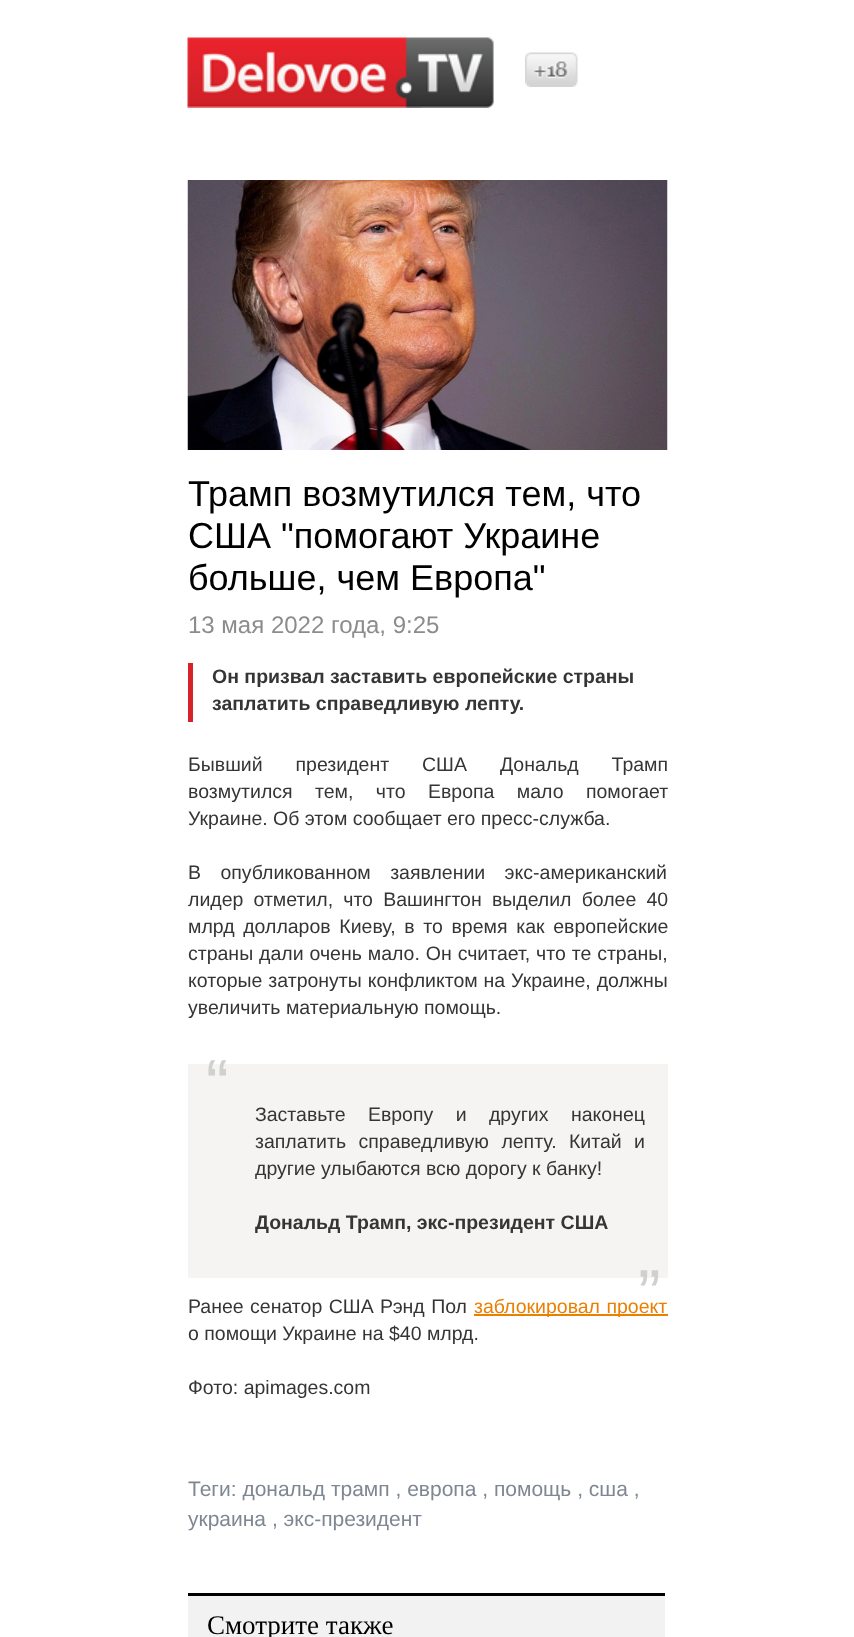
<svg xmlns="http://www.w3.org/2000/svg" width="854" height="1637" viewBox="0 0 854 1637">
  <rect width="100%" height="100%" fill="#fff"/>
  <image x="187" y="37" width="307" height="71" href="img/1.png"/>
  <image x="525" y="52" width="53" height="35" href="img/2.png"/>
  <image x="187" y="180" width="481" height="270" href="img/3.png"/>
  <path d="M188 663h5v59H188z" fill="#d82229"/>
  <path d="M188 1064h480v214H188z" fill="#f5f4f2"/>
  <path d="M474 1314h194v2H474z" fill="#eb7f00"/>
  <path d="M188 1596h477v41H188z" fill="#f2f2f2"/>
  <path d="M188 1593h477v3H188z" fill="#000"/>
  <g font-family="Liberation Sans" font-size="36" fill="#000">
    <text x="188" y="506">Трамп возмутился тем, что</text>
    <text x="188" y="548">США "помогают Украине</text>
    <text x="188" y="590">больше, чем Европа"</text>
  </g>
  <text x="188" y="633" font-family="Liberation Sans" font-size="24" fill="#8c8c8c">13 мая 2022 года, 9:25</text>
  <g font-family="Liberation Sans" font-size="19.5" font-weight="bold" fill="#353535">
    <text x="212" y="683">Он призвал заставить европейские страны</text>
    <text x="212" y="710">заплатить справедливую лепту.</text>
  </g>
  <g font-family="Liberation Sans" font-size="19.5" fill="#353535">
    <text x="188" y="771" word-spacing="27.5">Бывший президент США Дональд Трамп</text>
    <text x="188" y="798" word-spacing="17">возмутился тем, что Европа мало помогает</text>
    <text x="188" y="825">Украине. Об этом сообщает его пресс-служба.</text>
    <text x="188" y="879" word-spacing="14">В опубликованном заявлении экс-американский</text>
    <text x="188" y="906" word-spacing="4.75">лидер отметил, что Вашингтон выделил более 40</text>
    <text x="188" y="933" word-spacing="3.25">млрд долларов Киеву, в то время как европейские</text>
    <text x="188" y="960" word-spacing="0.5">страны дали очень мало. Он считает, что те страны,</text>
    <text x="188" y="987" word-spacing="0.5">которые затронуты конфликтом на Украине, должны</text>
    <text x="188" y="1014">увеличить материальную помощь.</text>
  </g>
  <text x="206" y="1107" font-family="Liberation Sans" font-size="68" fill="#d0d0ce">“</text>
  <g font-family="Liberation Sans" font-size="19.5" fill="#353535">
    <text x="255" y="1121" word-spacing="17">Заставьте Европу и других наконец</text>
    <text x="255" y="1148" word-spacing="7">заплатить справедливую лепту. Китай и</text>
    <text x="255" y="1175">другие улыбаются всю дорогу к банку!</text>
  </g>
  <text x="255" y="1229" font-family="Liberation Sans" font-size="19.5" font-weight="bold" fill="#353535">Дональд Трамп, экс-президент США</text>
  <text x="638" y="1317" font-family="Liberation Sans" font-size="68" fill="#d0d0ce">”</text>
  <text x="188" y="1313" word-spacing="1" font-family="Liberation Sans" font-size="19.5" fill="#353535">Ранее сенатор США Рэнд Пол</text>
  <text x="474" y="1313" word-spacing="1" font-family="Liberation Sans" font-size="19.5" fill="#eb7f00">заблокировал проект</text>
  <g font-family="Liberation Sans" font-size="19.5" fill="#353535">
    <text x="188" y="1340">о помощи Украине на $40 млрд.</text>
    <text x="188" y="1394">Фото: apimages.com</text>
  </g>
  <g font-family="Liberation Sans" font-size="21" fill="#7f8792">
    <text x="188" y="1496">Теги: дональд трамп , европа , помощь , сша ,</text>
    <text x="188" y="1526">украина , экс-президент</text>
  </g>
  <text x="207" y="1634" font-family="Liberation Serif" font-size="27" fill="#000">Смотрите также</text>
</svg>
